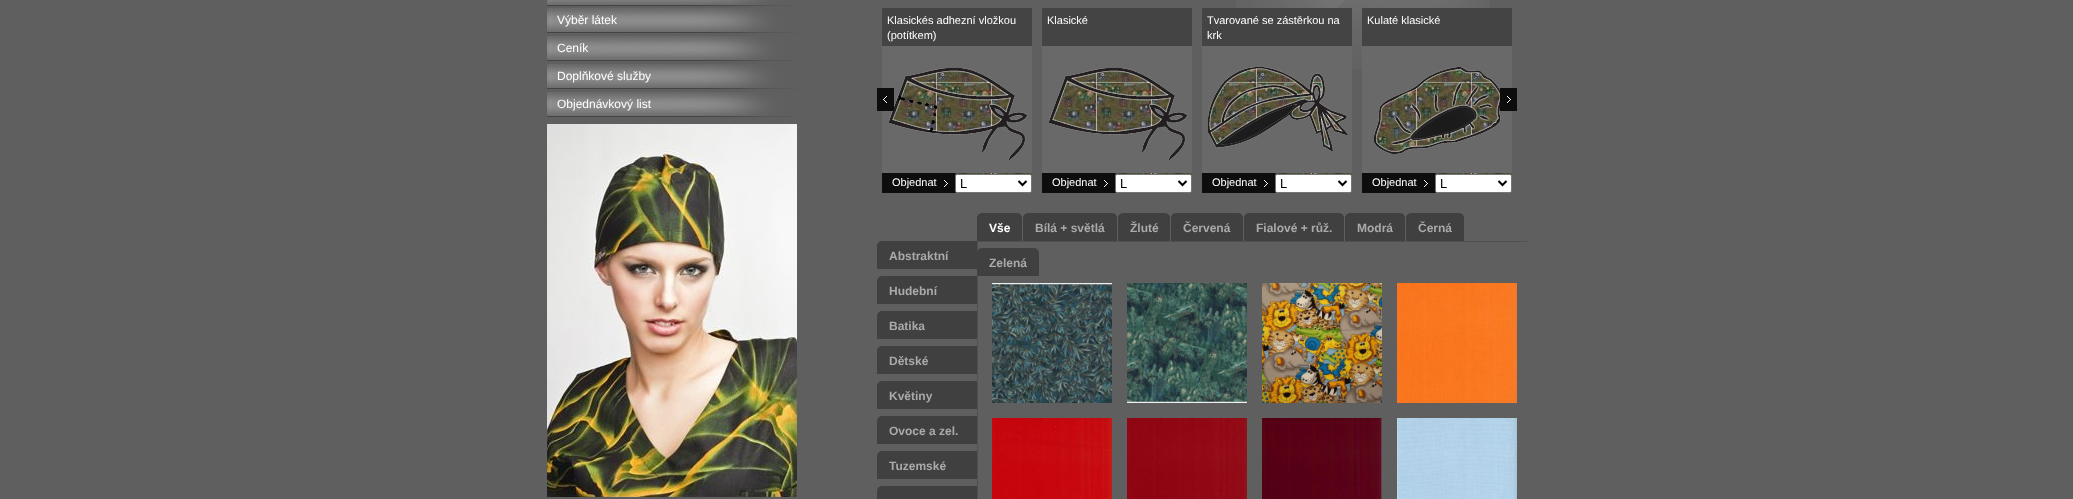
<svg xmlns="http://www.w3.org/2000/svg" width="2073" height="499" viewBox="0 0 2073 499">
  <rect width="100%" height="100%" fill="#5f5f5f"/>
  <image x="1236" y="0" width="254" height="69" href="img/1.png"/>
  <image x="547" y="0" width="249" height="6" href="img/2.png"/>
  <image x="547" y="8" width="249" height="25" href="img/3.png"/>
  <image x="547" y="36" width="249" height="25" href="img/3.png"/>
  <image x="547" y="64" width="249" height="25" href="img/3.png"/>
  <image x="547" y="92" width="249" height="25" href="img/3.png"/>
  <image x="547" y="124" width="250" height="373" href="img/4.png"/>
  <image x="889" y="68" width="143" height="125" href="img/6.png"/>
  <image x="882" y="46" width="150" height="127" href="img/7.png"/>
  <image x="877" y="88" width="17" height="23" href="img/5.png"/>
  <path d="M882 8h150v38H882z" fill="#444"/>
  <path d="M882 173h74v20H882z" fill="#0d0d0d"/>
  <image x="944" y="173" width="12" height="14" href="img/8.png"/>
  <rect x="955.5" y="174.5" width="76" height="18" rx="1.5" fill="#fff" stroke="#767676"/>
  <path d="M1018.5 181L1022.5 185L1026.5 181" fill="none" stroke="#000" stroke-width="2"/>
  <image x="1049" y="68" width="143" height="125" href="img/6.png"/>
  <path d="M1042 8h150v38H1042z" fill="#444"/>
  <image x="1042" y="46" width="150" height="127" href="img/9.png"/>
  <path d="M1042 173h74v20H1042z" fill="#0d0d0d"/>
  <image x="1104" y="173" width="12" height="14" href="img/8.png"/>
  <rect x="1115.5" y="174.5" width="76" height="18" rx="1.5" fill="#fff" stroke="#767676"/>
  <path d="M1178.5 181L1182.5 185L1186.5 181" fill="none" stroke="#000" stroke-width="2"/>
  <image x="1208" y="67" width="144" height="126" href="img/10.png"/>
  <path d="M1202 8h150v38H1202z" fill="#444"/>
  <image x="1202" y="46" width="150" height="127" href="img/11.png"/>
  <path d="M1202 173h74v20H1202z" fill="#0d0d0d"/>
  <image x="1264" y="173" width="12" height="14" href="img/8.png"/>
  <rect x="1275.5" y="174.5" width="76" height="18" rx="1.5" fill="#fff" stroke="#767676"/>
  <path d="M1338.5 181L1342.5 185L1346.5 181" fill="none" stroke="#000" stroke-width="2"/>
  <image x="1374" y="67" width="138" height="126" href="img/12.png"/>
  <path d="M1362 8h150v38H1362z" fill="#444"/>
  <image x="1362" y="46" width="150" height="127" href="img/13.png"/>
  <path d="M1362 173h74v20H1362z" fill="#0d0d0d"/>
  <image x="1424" y="173" width="12" height="14" href="img/8.png"/>
  <rect x="1435.5" y="174.5" width="76" height="18" rx="1.5" fill="#fff" stroke="#767676"/>
  <path d="M1498.5 181L1502.5 185L1506.5 181" fill="none" stroke="#000" stroke-width="2"/>
  <image x="1500" y="88" width="17" height="23" href="img/14.png"/>
  <path d="M977 241h1v258H977z" fill="#515151"/>
  <path d="M977 241h550v1H977z" fill="#515151"/>
  <image x="977" y="213" width="5" height="28" href="img/15.png"/>
  <path d="M982 213h35v28H982z" fill="#404040"/>
  <image x="1017" y="213" width="5" height="28" href="img/16.png"/>
  <image x="1023" y="213" width="5" height="28" href="img/15.png"/>
  <path d="M1028 213h84v28H1028z" fill="#404040"/>
  <image x="1112" y="213" width="5" height="28" href="img/16.png"/>
  <image x="1118" y="213" width="5" height="28" href="img/15.png"/>
  <path d="M1123 213h42v28H1123z" fill="#404040"/>
  <image x="1165" y="213" width="5" height="28" href="img/16.png"/>
  <image x="1171" y="213" width="5" height="28" href="img/15.png"/>
  <path d="M1176 213h62v28H1176z" fill="#404040"/>
  <image x="1238" y="213" width="5" height="28" href="img/16.png"/>
  <image x="1244" y="213" width="5" height="28" href="img/15.png"/>
  <path d="M1249 213h90v28H1249z" fill="#404040"/>
  <image x="1339" y="213" width="5" height="28" href="img/16.png"/>
  <image x="1345" y="213" width="5" height="28" href="img/15.png"/>
  <path d="M1350 213h50v28H1350z" fill="#404040"/>
  <image x="1400" y="213" width="5" height="28" href="img/16.png"/>
  <image x="1406" y="213" width="5" height="28" href="img/15.png"/>
  <path d="M1411 213h48v28H1411z" fill="#404040"/>
  <image x="1459" y="213" width="5" height="28" href="img/16.png"/>
  <image x="977" y="248" width="5" height="28" href="img/17.png"/>
  <path d="M982 248h52v28H982z" fill="#404040"/>
  <image x="1034" y="248" width="5" height="28" href="img/16.png"/>
  <image x="877" y="241" width="5" height="28" href="img/15.png"/>
  <path d="M882 241h95v28H882z" fill="#404040"/>
  <image x="877" y="276" width="5" height="28" href="img/15.png"/>
  <path d="M882 276h95v28H882z" fill="#404040"/>
  <image x="877" y="311" width="5" height="28" href="img/15.png"/>
  <path d="M882 311h95v28H882z" fill="#404040"/>
  <image x="877" y="346" width="5" height="28" href="img/15.png"/>
  <path d="M882 346h95v28H882z" fill="#404040"/>
  <image x="877" y="381" width="5" height="28" href="img/15.png"/>
  <path d="M882 381h95v28H882z" fill="#404040"/>
  <image x="877" y="416" width="5" height="28" href="img/15.png"/>
  <path d="M882 416h95v28H882z" fill="#404040"/>
  <image x="877" y="451" width="5" height="28" href="img/15.png"/>
  <path d="M882 451h95v28H882z" fill="#404040"/>
  <image x="877" y="486" width="5" height="13" href="img/18.png"/>
  <path d="M882 486h95v13H882z" fill="#404040"/>
  <image x="992" y="283" width="120" height="120" href="img/19.png"/>
  <image x="1127" y="283" width="120" height="120" href="img/20.png"/>
  <image x="1262" y="283" width="120" height="120" href="img/21.png"/>
  <image x="1397" y="283" width="120" height="120" href="img/22.png"/>
  <image x="992" y="418" width="120" height="81" href="img/23.png"/>
  <image x="1127" y="418" width="120" height="81" href="img/24.png"/>
  <image x="1262" y="418" width="120" height="81" href="img/25.png"/>
  <image x="1397" y="418" width="120" height="81" href="img/26.png"/>
  <g font-family="Liberation Sans" font-size="12" fill="#fff">
    <text x="557" y="24">Výběr látek</text>
    <text x="557" y="52">Ceník</text>
    <text x="557" y="80">Doplňkové služby</text>
    <text x="557" y="108">Objednávkový list</text>
  </g>
  <g font-family="Liberation Sans" font-size="11" fill="#fff">
    <text x="887" y="24">Klasickés adhezní vložkou</text>
    <text x="887" y="39">(potítkem)</text>
    <text x="892" y="186">Objednat</text>
  </g>
  <text x="960" y="188" font-family="Liberation Sans" font-size="13" fill="#000">L</text>
  <g font-family="Liberation Sans" font-size="11" fill="#fff">
    <text x="1047" y="24">Klasické</text>
    <text x="1052" y="186">Objednat</text>
  </g>
  <text x="1120" y="188" font-family="Liberation Sans" font-size="13" fill="#000">L</text>
  <g font-family="Liberation Sans" font-size="11" fill="#fff">
    <text x="1207" y="24">Tvarované se zástěrkou na</text>
    <text x="1207" y="39">krk</text>
    <text x="1212" y="186">Objednat</text>
  </g>
  <text x="1280" y="188" font-family="Liberation Sans" font-size="13" fill="#000">L</text>
  <g font-family="Liberation Sans" font-size="11" fill="#fff">
    <text x="1367" y="24">Kulaté klasické</text>
    <text x="1372" y="186">Objednat</text>
  </g>
  <text x="1440" y="188" font-family="Liberation Sans" font-size="13" fill="#000">L</text>
  <text x="989" y="232" font-family="Liberation Sans" font-size="12" font-weight="bold" fill="#fff">Vše</text>
  <g font-family="Liberation Sans" font-size="12" font-weight="bold" fill="#aaa">
    <text x="1035" y="232">Bílá + světlá</text>
    <text x="1130" y="232">Žluté</text>
    <text x="1183" y="232">Červená</text>
    <text x="1256" y="232">Fialové + růž.</text>
    <text x="1357" y="232">Modrá</text>
    <text x="1418" y="232">Černá</text>
    <text x="989" y="267">Zelená</text>
    <text x="889" y="260">Abstraktní</text>
    <text x="889" y="295">Hudební</text>
    <text x="889" y="330">Batika</text>
    <text x="889" y="365">Dětské</text>
    <text x="889" y="400">Květiny</text>
    <text x="889" y="435">Ovoce a zel.</text>
    <text x="889" y="470">Tuzemské</text>
  </g>
</svg>
